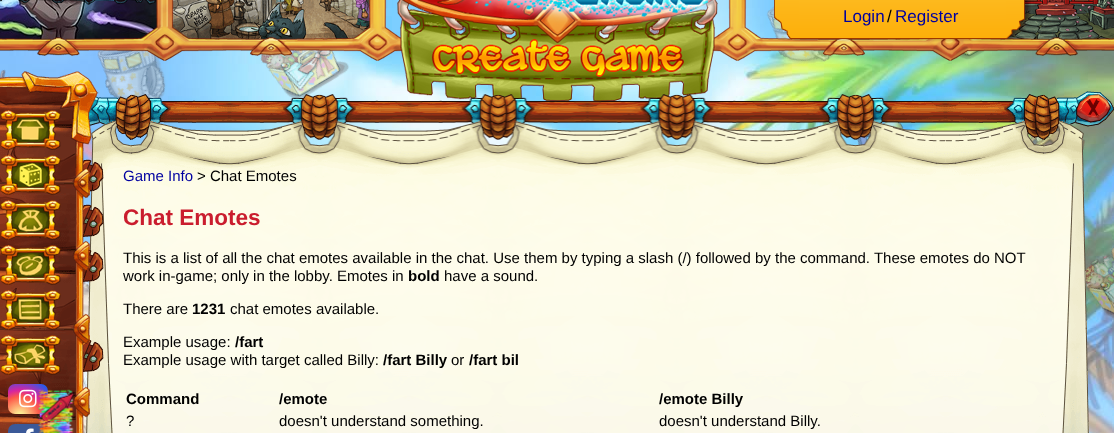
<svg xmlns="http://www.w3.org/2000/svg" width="1114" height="433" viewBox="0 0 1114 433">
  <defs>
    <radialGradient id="g1" gradientUnits="userSpaceOnUse" cx="20" cy="416" r="43"><stop offset="0" stop-color="#fdf497"/><stop offset="0.05" stop-color="#fdf497"/><stop offset="0.45" stop-color="#fd5949"/><stop offset="0.6" stop-color="#d6249f"/><stop offset="0.9" stop-color="#285aeb"/></radialGradient>
  </defs>
  <rect width="100%" height="100%" fill="#fff"/>
  <image x="0" y="0" width="1114" height="433" href="img/1.png"/>
  <image x="0" y="6" width="1114" height="313" href="img/2.png"/>
  <image x="0" y="0" width="157" height="39" href="img/3.png"/>
  <image x="172" y="0" width="198" height="39" href="img/5.png"/>
  <image x="1007" y="0" width="107" height="39" href="img/6.png"/>
  <image x="0" y="0" width="1114" height="101" href="img/4.png"/>
  <image x="774" y="0" width="25" height="18" href="img/7.png"/>
  <image x="799" y="0" width="207" height="19" href="img/8.png"/>
  <image x="1006" y="0" width="25" height="18" href="img/9.png"/>
  <image x="774" y="18" width="25" height="24" href="img/10.png"/>
  <image x="1006" y="18" width="25" height="24" href="img/11.png"/>
  <image x="799" y="19" width="207" height="23" href="img/12.png"/>
  <image x="86" y="94" width="144" height="339" href="img/30.png"/>
  <image x="73" y="159" width="31" height="33" href="img/16.png"/>
  <image x="0" y="71" width="99" height="112" href="img/13.png"/>
  <image x="0" y="110" width="61" height="40" href="img/14.png"/>
  <image x="83" y="204" width="21" height="33" href="img/19.png"/>
  <image x="83" y="249" width="21" height="33" href="img/21.png"/>
  <image x="83" y="339" width="21" height="33" href="img/24.png"/>
  <image x="0" y="183" width="90" height="250" href="img/17.png"/>
  <image x="0" y="155" width="61" height="40" href="img/15.png"/>
  <image x="0" y="200" width="61" height="40" href="img/18.png"/>
  <image x="0" y="245" width="61" height="40" href="img/20.png"/>
  <image x="0" y="290" width="61" height="40" href="img/22.png"/>
  <image x="0" y="335" width="61" height="40" href="img/23.png"/>
  <rect x="8" y="384" width="40" height="30" rx="7" fill="url(#g1)"/>
  <image x="19" y="389" width="18" height="19" href="img/25.png"/>
  <rect x="8" y="424" width="40" height="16" rx="7" fill="#3b5998"/>
  <image x="26" y="428" width="8" height="5" href="img/26.png"/>
  <image x="37" y="389" width="37" height="37" href="img/27.png"/>
  <image x="36" y="391" width="39" height="33" href="img/28.png"/>
  <image x="37" y="418" width="37" height="15" href="img/29.png"/>
  <image x="230" y="94" width="715" height="339" href="img/31.png"/>
  <image x="945" y="91" width="169" height="342" href="img/32.png"/>
  <image x="1076" y="94" width="35" height="29" href="img/33.png"/>
  <text x="843" y="22" font-family="Liberation Sans" font-size="17" fill="#0000a0">Login</text>
  <text x="887" y="22" font-family="Liberation Sans" font-size="17" fill="#000">/</text>
  <text x="895" y="22" font-family="Liberation Sans" font-size="17" fill="#0000a0">Register</text>
  <text x="123" y="181" font-family="Liberation Sans" font-size="15" fill="#0000a0">Game Info</text>
  <text x="197" y="181" font-family="Liberation Sans" font-size="15" fill="#000">&gt; Chat Emotes</text>
  <text x="123" y="225" font-family="Liberation Sans" font-size="22.5" font-weight="bold" fill="#ca1d2e">Chat Emotes</text>
  <g font-family="Liberation Sans" font-size="15" fill="#000">
    <text x="123" y="263">This is a list of all the chat emotes available in the chat. Use them by typing a slash (/) followed by the command. These emotes do NOT</text>
    <text x="123" y="281">work in-game; only in the lobby. Emotes in</text>
  </g>
  <text x="408" y="281" font-family="Liberation Sans" font-size="15" font-weight="bold" fill="#000">bold</text>
  <g font-family="Liberation Sans" font-size="15" fill="#000">
    <text x="444" y="281">have a sound.</text>
    <text x="123" y="314">There are</text>
  </g>
  <text x="192" y="314" font-family="Liberation Sans" font-size="15" font-weight="bold" fill="#000">1231</text>
  <g font-family="Liberation Sans" font-size="15" fill="#000">
    <text x="230" y="314">chat emotes available.</text>
    <text x="123" y="347">Example usage:</text>
  </g>
  <text x="235" y="347" font-family="Liberation Sans" font-size="15" font-weight="bold" fill="#000">/fart</text>
  <text x="123" y="365" font-family="Liberation Sans" font-size="15" fill="#000">Example usage with target called Billy:</text>
  <text x="383" y="365" font-family="Liberation Sans" font-size="15" font-weight="bold" fill="#000">/fart Billy</text>
  <text x="451" y="365" font-family="Liberation Sans" font-size="15" fill="#000">or</text>
  <g font-family="Liberation Sans" font-size="15" font-weight="bold" fill="#000">
    <text x="469" y="365">/fart bil</text>
    <text x="126" y="404">Command</text>
    <text x="279" y="404">/emote</text>
    <text x="659" y="404">/emote Billy</text>
  </g>
  <g font-family="Liberation Sans" font-size="15" fill="#000">
    <text x="126" y="426">?</text>
    <text x="279" y="426">doesn't understand something.</text>
    <text x="659" y="426">doesn't understand Billy.</text>
  </g>
</svg>
